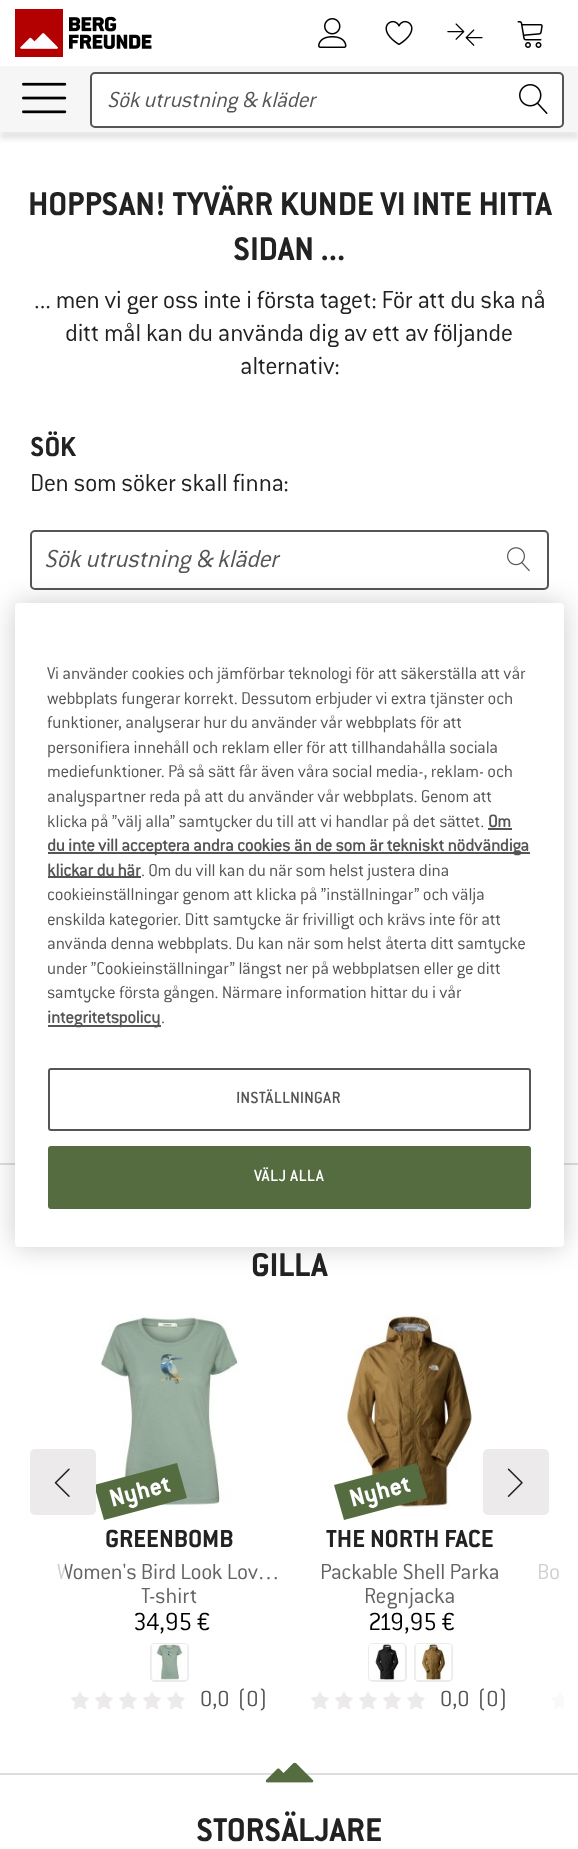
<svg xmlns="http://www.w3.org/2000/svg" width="578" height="1849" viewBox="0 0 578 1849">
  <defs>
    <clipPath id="clip1"><path d="M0 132h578v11H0z"/></clipPath>
    <clipPath id="clip2"><path d="M551 1692h13v18H551z"/></clipPath>
  </defs>
  <rect width="100%" height="100%" fill="#fff"/>
  <image x="15" y="9" width="137" height="48" href="img/1.png"/>
  <image x="318" y="18" width="29" height="30" href="img/2.png"/>
  <image x="385" y="20" width="28" height="25" href="img/3.png"/>
  <image x="447" y="23" width="36" height="23" href="img/4.png"/>
  <image x="517" y="21" width="26" height="27" href="img/5.png"/>
  <path d="M0 66h578v66H0z" fill="#f6f6f6"/>
  <image x="22" y="82" width="45" height="32" href="img/6.png"/>
  <rect x="91" y="73" width="472" height="54" rx="4" fill="#fff" stroke="#555" stroke-width="2"/>
  <image x="519" y="84" width="29" height="30" href="img/7.png"/>
  <g clip-path="url(#clip1)">
    <path d="M0 131h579v7H0z" fill="#c6c6c699" filter="blur(3px)"/>
  </g>
  <rect x="31" y="531" width="517" height="58" rx="4" fill="none" stroke="#555" stroke-width="2"/>
  <image x="507" y="547" width="23" height="25" href="img/8.png"/>
  <path d="M0 1163h578v2H0z" fill="#ddd"/>
  <image x="101" y="1314" width="138" height="194" href="img/11.png"/>
  <path d="M94 1485L177 1463L187 1498L104 1520Z" fill="#556c41"/>
  <rect x="30" y="1449" width="66" height="66" rx="5" fill="#eceaea"/>
  <image x="54" y="1468" width="16" height="29" href="img/9.png"/>
  <rect x="483" y="1449" width="66" height="66" rx="5" fill="#eceaea"/>
  <image x="507" y="1468" width="16" height="29" href="img/10.png"/>
  <rect x="151" y="1644" width="37" height="37" rx="4" fill="none" stroke="#eceaea" stroke-width="2"/>
  <image x="151" y="1644" width="37" height="36" href="img/12.png"/>
  <path d="M85.5 1709.5L86 1709L85 1702.5L89 1698.5V1698L83 1696.5L80.5 1692H79.5L77.5 1696.5L71.5 1697.5L71 1698V1698.5L75 1702.5L74 1709L75 1709.5L80 1706.5ZM109.5 1709.5L110 1709L109 1702.5L113 1698.5V1698L107 1696.5L104.5 1692H103.5L101.5 1696.5L95.5 1697.5L95 1698V1698.5L99 1702.5L98 1709L99 1709.5L104 1706.5Z" fill="#eceaea"/>
  <path d="M133.5 1709.5L134 1709L133 1702.5L137 1698.5V1698L131 1696.5L128.5 1692H127.5L125.5 1696.5L119.5 1697.5L119 1698V1698.5L123 1702.5L122 1709L123 1709.5L128 1706.5ZM157.5 1709.5L158 1709L157 1702.5L161 1698.5V1698L155 1696.5L152.5 1692H151.5L149.5 1696.5L143.5 1697.5L143 1698V1698.5L147 1702.5L146 1709L147 1709.5L152 1706.5Z" fill="#eceaea"/>
  <path d="M181.5 1709.5L182 1709L181 1702.5L185 1698.5V1698L179 1696.5L176.5 1692H175.5L173.5 1696.5L167.5 1697.5L167 1698V1698.5L171 1702.5L170 1709L171 1709.5L176 1706.5Z" fill="#eceaea"/>
  <image x="341" y="1314" width="132" height="195" href="img/13.png"/>
  <path d="M334 1485L417 1463L427 1498L344 1520Z" fill="#556c41"/>
  <rect x="369" y="1644" width="37" height="37" rx="4" fill="none" stroke="#eceaea" stroke-width="2"/>
  <image x="369" y="1644" width="36" height="36" href="img/14.png"/>
  <rect x="415" y="1644" width="37" height="37" rx="4" fill="none" stroke="#eceaea" stroke-width="2"/>
  <image x="415" y="1644" width="37" height="36" href="img/15.png"/>
  <path d="M325.5 1709.5L326 1709L325 1702.5L329 1698.5V1698L323 1696.5L320.5 1692H319.5L317.5 1696.5L311.5 1697.5L311 1698V1698.5L315 1702.5L314 1709L315 1709.5L320 1706.5ZM349.5 1709.5L350 1709L349 1702.5L353 1698.5V1698L347 1696.5L344.5 1692H343.5L341.5 1696.5L335.5 1697.5L335 1698V1698.5L339 1702.5L338 1709L339 1709.5L344 1706.5Z" fill="#eceaea"/>
  <path d="M373.5 1709.5L374 1709L373 1702.5L377 1698.5V1698L371 1696.5L368.5 1692H367.5L365.5 1696.5L359.5 1697.5L359 1698V1698.5L363 1702.5L362 1709L363 1709.5L368 1706.5ZM397.5 1709.5L398 1709L397 1702.5L401 1698.5V1698L395 1696.5L392.5 1692H391.5L389.5 1696.5L383.5 1697.5L383 1698V1698.5L387 1702.5L386 1709L387 1709.5L392 1706.5Z" fill="#eceaea"/>
  <path d="M421.5 1709.5L422 1709L421 1702.5L425 1698.5V1698L419 1696.5L416.5 1692H415.5L413.5 1696.5L407.5 1697.5L407 1698V1698.5L411 1702.5L410 1709L411 1709.5L416 1706.5Z" fill="#eceaea"/>
  <g clip-path="url(#clip2)">
    <path d="M565.5 1709.5L566 1709L565 1702.5L569 1698.5V1698L563 1696.5L560.5 1692H559.5L557.5 1696.5L551.5 1697.5L551 1698V1698.5L555 1702.5L554 1709L555 1709.5L560 1706.5Z" fill="#f9f9f9"/>
  </g>
  <path d="M0 1773h578v2H0z" fill="#ddd"/>
  <image x="266" y="1763" width="48" height="20" href="img/16.png"/>
  <rect x="15" y="603" width="549" height="644" rx="4" fill="#00000033" filter="blur(13.5px)"/>
  <rect x="15" y="603" width="549" height="644" rx="4" fill="#fff"/>
  <path d="M488 828h24v2H488z" fill="#555"/>
  <path d="M48 852h482v2H48z" fill="#555"/>
  <path d="M48 876h93v2H48z" fill="#555"/>
  <path d="M48 1025h113v2H48z" fill="#555"/>
  <rect x="49" y="1069" width="481" height="61" rx="2" fill="none" stroke="#555" stroke-width="2"/>
  <rect x="49" y="1147" width="481" height="61" rx="2" fill="#556c41" stroke="#556c41" stroke-width="2"/>
  <text x="107" y="107" font-family="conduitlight" font-size="24" font-weight="300" font-style="italic" fill="#555">Sök utrustning &amp; kläder</text>
  <g font-family="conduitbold" font-size="36" font-weight="bold" fill="#222">
    <text x="28" y="215">HOPPSAN! TYVÄRR KUNDE VI INTE HITTA</text>
    <text x="233" y="260">SIDAN ...</text>
  </g>
  <g font-family="conduitlight" font-size="27" font-weight="300" fill="#222">
    <text x="34" y="308">... men vi ger oss inte i första taget: För att du ska nå</text>
    <text x="65" y="341">ditt mål kan du använda dig av ett av följande</text>
    <text x="240" y="374">alternativ:</text>
  </g>
  <text x="30" y="456" font-family="conduitbold" font-size="30" font-weight="bold" fill="#222">SÖK</text>
  <text x="30" y="491" font-family="conduitlight" font-size="27" font-weight="300" fill="#222">Den som söker skall finna:</text>
  <text x="44" y="567" font-family="conduitlight" font-size="27" font-weight="300" font-style="italic" fill="#555">Sök utrustning &amp; kläder</text>
  <text x="251" y="1276" font-family="conduitbold" font-size="36" font-weight="bold" fill="#222">GILLA</text>
  <text x="112" y="1507" transform="rotate(-15 112 1507)" font-family="conduitbold" font-size="27" font-weight="bold" fill="#fff">Nyhet</text>
  <text x="105" y="1547" font-family="conduitbold" font-size="27" font-weight="bold" fill="#222">GREENBOMB</text>
  <text x="57" y="1579" font-family="conduitlight" font-size="24" font-weight="300" fill="#646464">Women's Bird Look Lov…</text>
  <path d="M57 1563h8v16H57z" fill="#ffffffb3"/>
  <text x="141" y="1603" font-family="conduitlight" font-size="24" font-weight="300" fill="#646464">T-shirt</text>
  <text x="133" y="1630" font-family="conduitlight" font-size="27" font-weight="300" fill="#000">34,95 €</text>
  <g font-family="conduitlight" font-size="24" font-weight="300" fill="#555">
    <text x="200" y="1706">0,0</text>
    <text x="237" y="1706">(0)</text>
  </g>
  <text x="352" y="1507" transform="rotate(-15 352 1507)" font-family="conduitbold" font-size="27" font-weight="bold" fill="#fff">Nyhet</text>
  <text x="326" y="1547" font-family="conduitbold" font-size="27" font-weight="bold" fill="#222">THE NORTH FACE</text>
  <g font-family="conduitlight" font-size="24" font-weight="300" fill="#646464">
    <text x="320" y="1579">Packable Shell Parka</text>
    <text x="364" y="1603">Regnjacka</text>
  </g>
  <text x="368" y="1630" font-family="conduitlight" font-size="27" font-weight="300" fill="#000">219,95 €</text>
  <g font-family="conduitlight" font-size="24" font-weight="300" fill="#555">
    <text x="440" y="1706">0,0</text>
    <text x="477" y="1706">(0)</text>
  </g>
  <text x="537" y="1579" font-family="conduitlight" font-size="24" font-weight="300" fill="#d1d1d1">Bo</text>
  <text x="196" y="1841" font-family="conduitbold" font-size="36" font-weight="bold" fill="#222">STORSÄLJARE</text>
  <g font-family="conduitlight" font-size="18.9" font-weight="300" fill="#555">
    <text x="47" y="679">Vi använder cookies och jämförbar teknologi för att säkerställa att vår</text>
    <text x="47" y="704">webbplats fungerar korrekt. Dessutom erbjuder vi extra tjänster och</text>
    <text x="47" y="728">funktioner, analyserar hur du använder vår webbplats för att</text>
    <text x="47" y="753">personifiera innehåll och reklam eller för att tillhandahålla sociala</text>
    <text x="47" y="777">mediefunktioner. På så sätt får även våra social media-, reklam- och</text>
    <text x="47" y="802">analyspartner reda på att du använder vår webbplats. Genom att</text>
    <text x="47" y="827">klicka på ”välj alla” samtycker du till att vi handlar på det sättet.</text>
  </g>
  <g font-family="conduitlight" font-size="18.9" font-weight="bold" fill="#555">
    <text x="488" y="827">Om</text>
    <text x="47" y="851">du inte vill acceptera andra cookies än de som är tekniskt nödvändiga</text>
    <text x="47" y="876">klickar du här</text>
  </g>
  <g font-family="conduitlight" font-size="18.9" font-weight="300" fill="#555">
    <text x="141" y="876">. Om du vill kan du när som helst justera dina</text>
    <text x="47" y="900">cookieinställningar genom att klicka på ”inställningar” och välja</text>
    <text x="47" y="925">enskilda kategorier. Ditt samtycke är frivilligt och krävs inte för att</text>
    <text x="47" y="949">använda denna webbplats. Du kan när som helst återta ditt samtycke</text>
    <text x="47" y="974">under ”Cookieinställningar” längst ner på webbplatsen eller ge ditt</text>
    <text x="47" y="998">samtycke första gången. Närmare information hittar du i vår</text>
  </g>
  <text x="47" y="1023" font-family="conduitlight" font-size="18.9" font-weight="bold" fill="#555">integritetspolicy</text>
  <text x="161" y="1023" font-family="conduitlight" font-size="18.9" font-weight="300" fill="#555">.</text>
  <text x="236" y="1103" font-family="conduitlight" font-size="17" font-weight="bold" letter-spacing="0.8" fill="#555">INSTÄLLNINGAR</text>
  <text x="254" y="1181" font-family="conduitlight" font-size="17" font-weight="bold" letter-spacing="0.8" fill="#fff">VÄLJ ALLA</text>
</svg>
